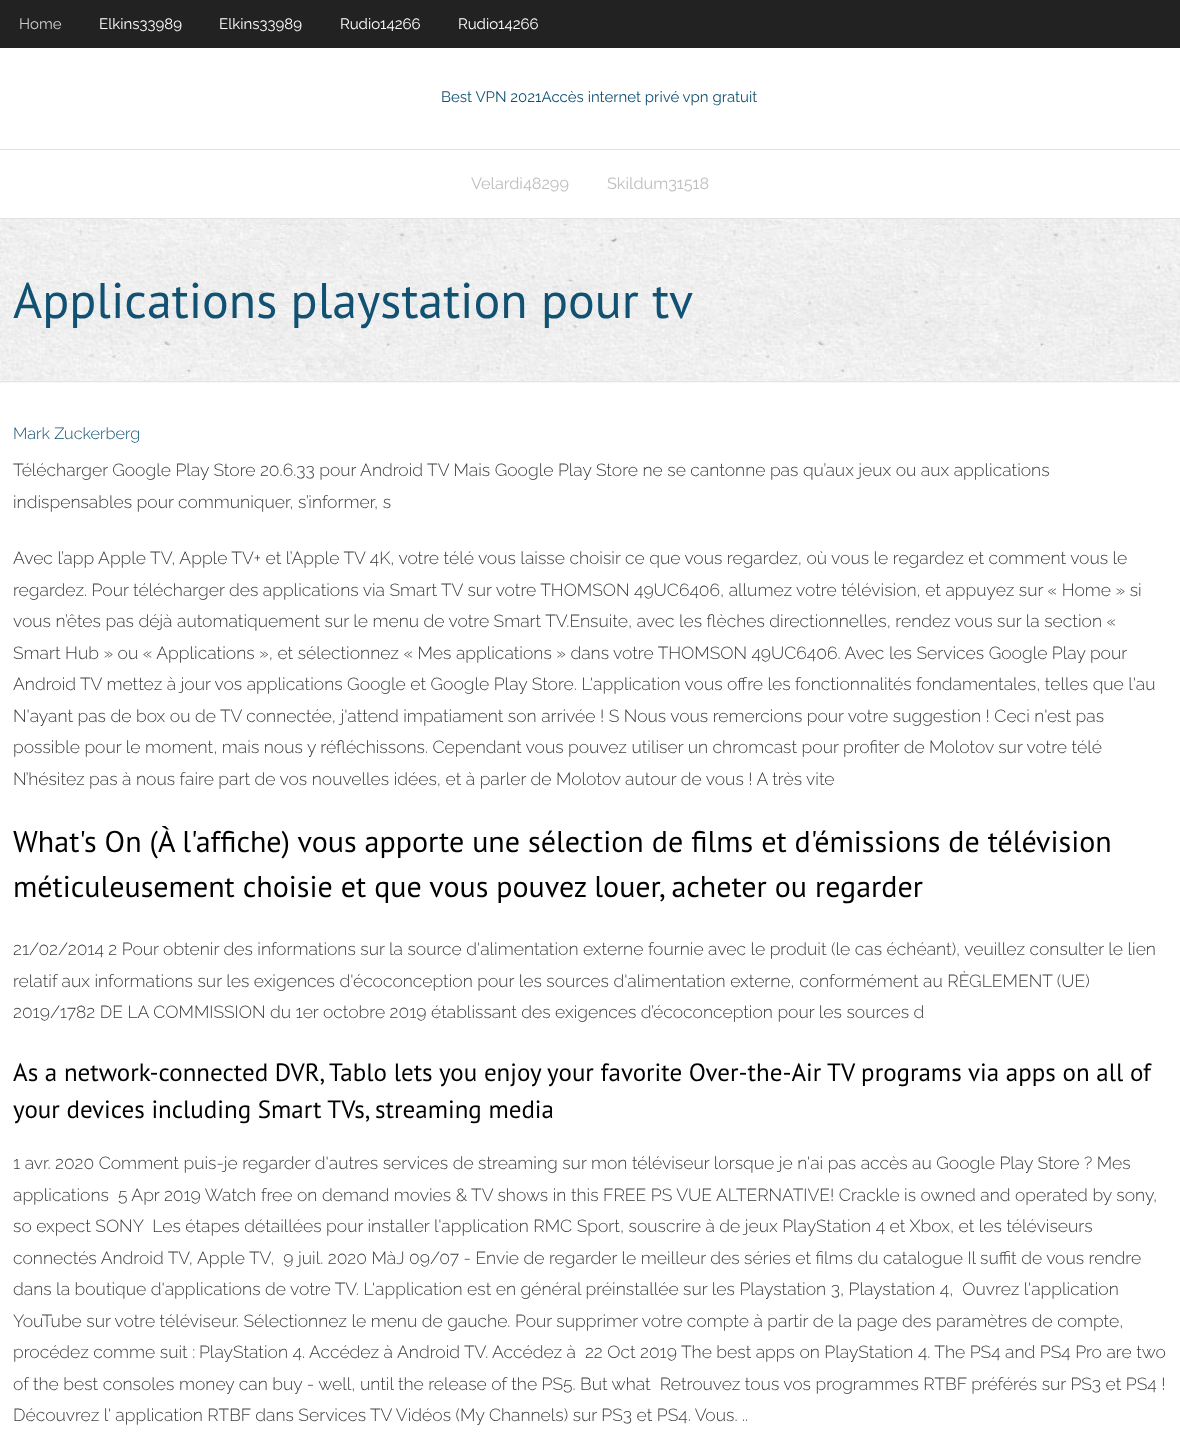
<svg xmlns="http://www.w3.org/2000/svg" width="1180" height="1433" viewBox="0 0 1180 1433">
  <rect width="100%" height="100%" fill="#fff"/>
  <path d="M0 0h1180v48H0z" fill="#222"/>
  <path d="M0 149h1180v1H0z" fill="#e1e1e1"/>
  <path d="M0 218h1180v1H0z" fill="#e1e1e1"/>
  <image x="0" y="219" width="1180" height="164" href="img/1.png"/>
  <path d="M0 381h1180v1H0z" fill="#e5e5e5"/>
  <text x="19" y="29" font-family="Raleway" font-size="15" fill="#ccc">Home</text>
  <g font-family="Raleway" font-size="15" fill="#fff">
    <text x="99" y="29">Elkins33989</text>
    <text x="219" y="29">Elkins33989</text>
    <text x="340" y="29">Rudio14266</text>
    <text x="458" y="29">Rudio14266</text>
  </g>
  <text x="441" y="102" font-family="Raleway" font-size="15" fill="#115172">Best VPN 2021Accès internet privé vpn gratuit</text>
  <g font-family="Raleway" font-size="16.25" fill="#bebebe">
    <text x="471" y="189">Velardi48299</text>
    <text x="607" y="189">Skildum31518</text>
  </g>
  <text x="13" y="318" font-family="PT Sans" font-size="50" fill="#115172">Applications playstation pour tv</text>
  <text x="13" y="439" font-family="Raleway" font-size="16.25" font-weight="300" fill="#115172">Mark Zuckerberg</text>
  <g font-family="Raleway" font-size="17.5" font-weight="300" fill="#3d3d3d">
    <text x="13" y="476">Télécharger Google Play Store 20.6.33 pour Android TV Mais Google Play Store ne se cantonne pas qu’aux jeux ou aux applications</text>
    <text x="13" y="508">indispensables pour communiquer, s’informer, s</text>
    <text x="13" y="564">Avec l’app Apple TV, Apple TV+ et l’Apple TV 4K, votre télé vous laisse choisir ce que vous regardez, où vous le regardez et comment vous le</text>
    <text x="13" y="596">regardez. Pour télécharger des applications via Smart TV sur votre THOMSON 49UC6406, allumez votre télévision, et appuyez sur « Home » si</text>
    <text x="13" y="627">vous n’êtes pas déjà automatiquement sur le menu de votre Smart TV.Ensuite, avec les flèches directionnelles, rendez vous sur la section «</text>
    <text x="13" y="659">Smart Hub » ou « Applications », et sélectionnez « Mes applications » dans votre THOMSON 49UC6406. Avec les Services Google Play pour</text>
    <text x="13" y="690">Android TV mettez à jour vos applications Google et Google Play Store. L'application vous offre les fonctionnalités fondamentales, telles que l'au</text>
    <text x="13" y="722">N'ayant pas de box ou de TV connectée, j'attend impatiament son arrivée ! S Nous vous remercions pour votre suggestion ! Ceci n'est pas</text>
    <text x="13" y="753">possible pour le moment, mais nous y réfléchissons. Cependant vous pouvez utiliser un chromcast pour profiter de Molotov sur votre télé</text>
    <text x="13" y="785">N’hésitez pas à nous faire part de vos nouvelles idées, et à parler de Molotov autour de vous ! A très vite</text>
  </g>
  <g font-family="PT Sans" font-size="30" fill="#000">
    <text x="13" y="852">What's On (À l'affiche) vous apporte une sélection de films et d'émissions de télévision</text>
    <text x="13" y="897">méticuleusement choisie et que vous pouvez louer, acheter ou regarder</text>
  </g>
  <g font-family="Raleway" font-size="17.5" font-weight="300" fill="#3d3d3d">
    <text x="13" y="955">21/02/2014 2 Pour obtenir des informations sur la source d'alimentation externe fournie avec le produit (le cas échéant), veuillez consulter le lien</text>
    <text x="13" y="987">relatif aux informations sur les exigences d'écoconception pour les sources d'alimentation externe, conformément au RÈGLEMENT (UE)</text>
    <text x="13" y="1018">2019/1782 DE LA COMMISSION du 1er octobre 2019 établissant des exigences d’écoconception pour les sources d</text>
  </g>
  <g font-family="PT Sans" font-size="25" fill="#000">
    <text x="13" y="1081">As a network-connected DVR, Tablo lets you enjoy your favorite Over-the-Air TV programs via apps on all of</text>
    <text x="13" y="1118">your devices including Smart TVs, streaming media</text>
  </g>
  <g font-family="Raleway" font-size="17.5" font-weight="300" fill="#3d3d3d">
    <text x="13" y="1169">1 avr. 2020 Comment puis-je regarder d'autres services de streaming sur mon téléviseur lorsque je n'ai pas accès au Google Play Store ? Mes</text>
    <text x="13" y="1201" xml:space="preserve">applications  5 Apr 2019 Watch free on demand movies &amp; TV shows in this FREE PS VUE ALTERNATIVE! Crackle is owned and operated by sony,</text>
    <text x="13" y="1232" xml:space="preserve">so expect SONY  Les étapes détaillées pour installer l'application RMC Sport, souscrire à de jeux PlayStation 4 et Xbox, et les téléviseurs</text>
    <text x="13" y="1264" xml:space="preserve">connectés Android TV, Apple TV,  9 juil. 2020 MàJ 09/07 - Envie de regarder le meilleur des séries et films du catalogue Il suffit de vous rendre</text>
    <text x="13" y="1295" xml:space="preserve">dans la boutique d'applications de votre TV. L'application est en général préinstallée sur les Playstation 3, Playstation 4,  Ouvrez l'application</text>
    <text x="13" y="1327">YouTube sur votre téléviseur. Sélectionnez le menu de gauche. Pour supprimer votre compte à partir de la page des paramètres de compte,</text>
    <text x="13" y="1358">procédez comme suit :</text>
    <text x="199" y="1358">PlayStation 4. Accédez à</text>
    <text x="397" y="1358">Android TV.</text>
    <text x="492" y="1358" xml:space="preserve">Accédez à  22 Oct 2019 The best apps on PlayStation 4. The PS4 and PS4 Pro are two</text>
    <text x="13" y="1390" xml:space="preserve">of the best consoles money can buy - well, until the release of the PS5. But what  Retrouvez tous vos programmes RTBF préférés sur PS3 et PS4 !</text>
    <text x="13" y="1421">Découvrez l' application RTBF dans Services TV Vidéos (My Channels) sur PS3 et PS4. Vous. ..</text>
  </g>
</svg>
